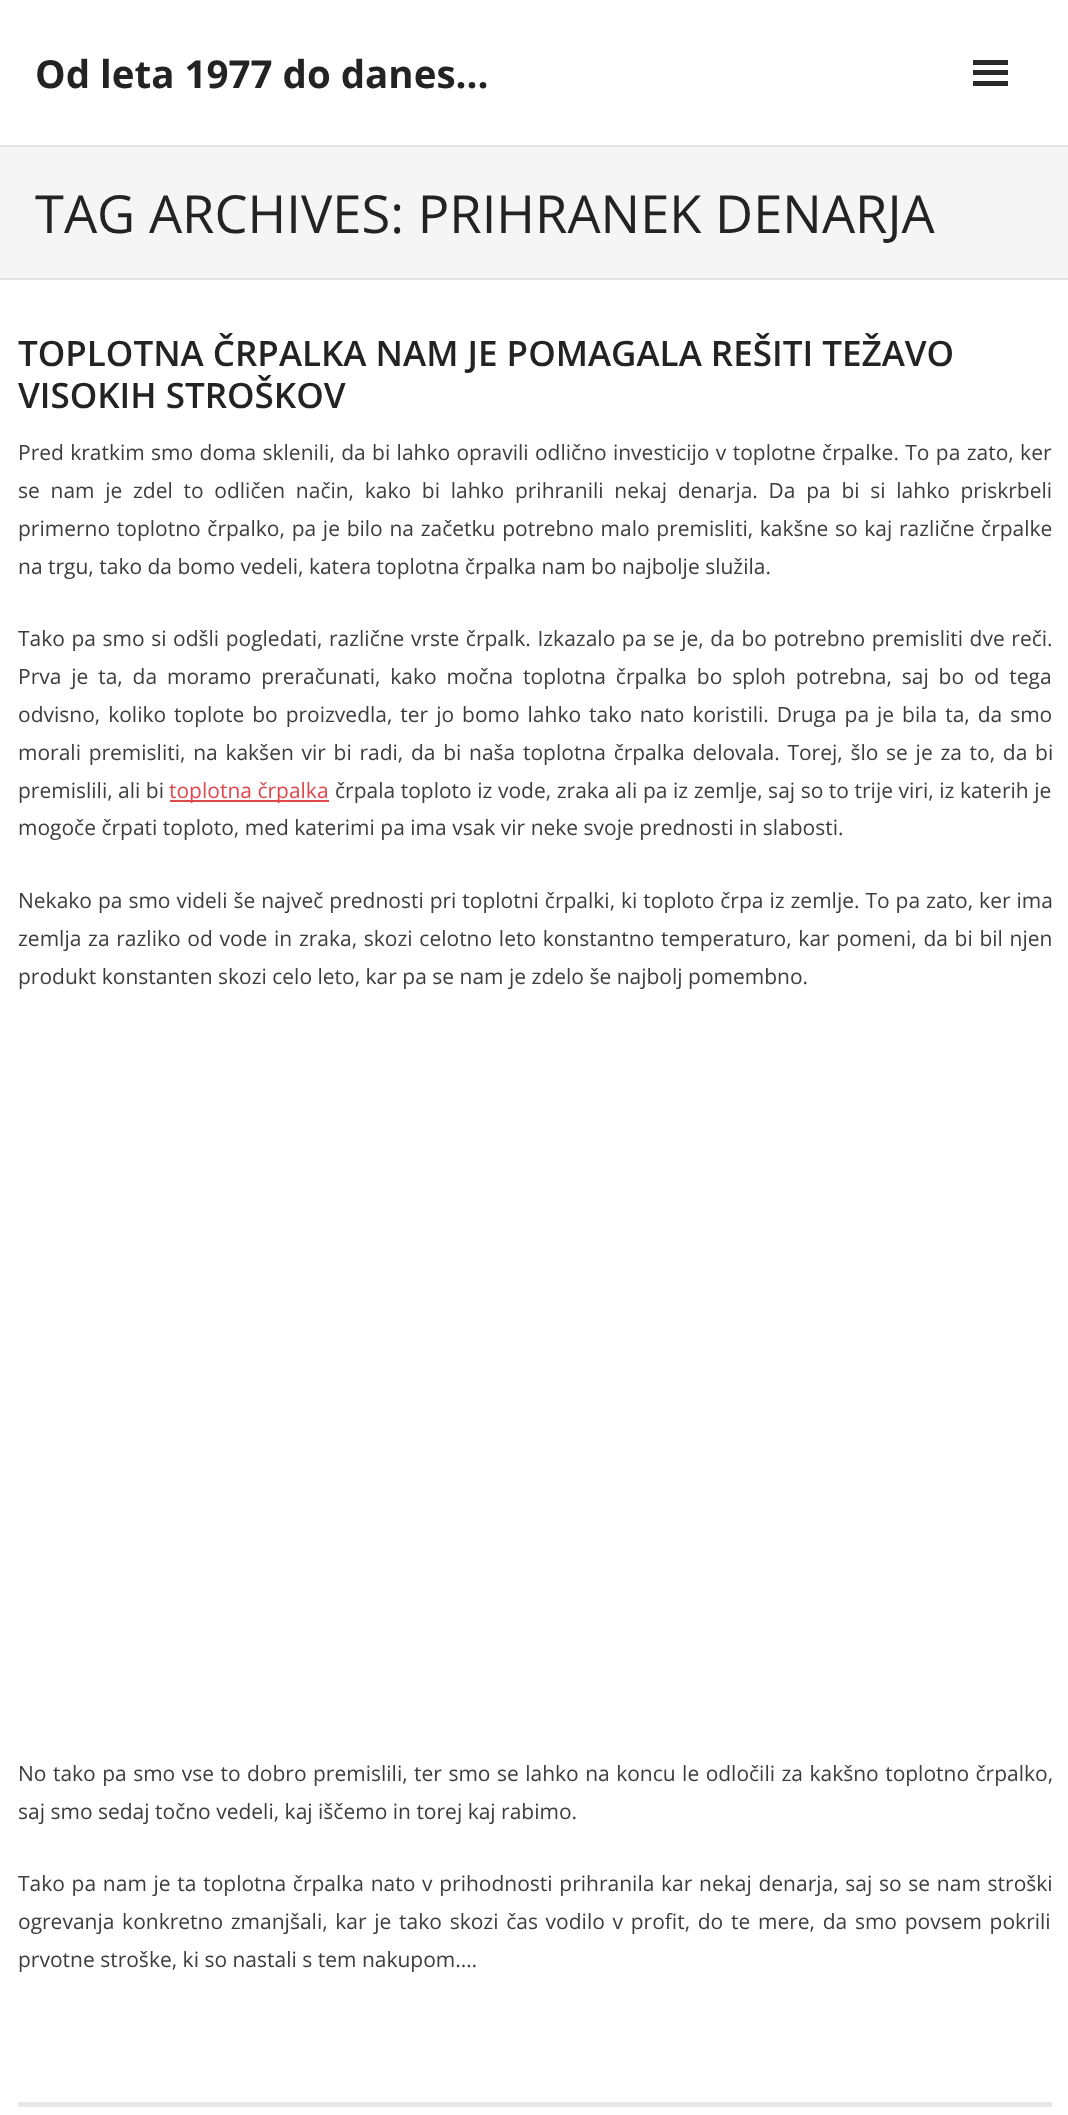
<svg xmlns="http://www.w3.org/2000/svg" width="1068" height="2115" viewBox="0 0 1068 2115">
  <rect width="100%" height="100%" fill="#fff"/>
  <path d="M0 145h1068v2H0z" fill="#e3e3e3"/>
  <path d="M973 60h35v5H973z" fill="#292929"/>
  <path d="M973 70h35v5H973z" fill="#292929"/>
  <path d="M973 81h35v5H973z" fill="#292929"/>
  <path d="M0 147h1068v131H0z" fill="#f5f5f5"/>
  <path d="M0 278h1068v2H0z" fill="#e3e3e3"/>
  <path d="M18 2102h1034v5H18z" fill="#e7e7e7"/>
  <path d="M170 800h159v2H170z" fill="#e0484c"/>
  <text x="35" y="88" font-family="Open Sans" font-size="38.5" font-weight="bold" fill="#232323">Od leta 1977 do danes...</text>
  <text x="35" y="233" font-family="Open Sans" font-size="52.5" fill="#232323">TAG ARCHIVES: PRIHRANEK DENARJA</text>
  <g font-family="Open Sans" font-size="35" font-weight="600" fill="#232323">
    <text x="18" y="366">TOPLOTNA ČRPALKA NAM JE POMAGALA REŠITI TEŽAVO</text>
    <text x="18" y="408">VISOKIH STROŠKOV</text>
  </g>
  <g font-family="Open Sans" font-size="21" fill="#3d3d3d">
    <text x="18" y="460" word-spacing="0.9">Pred kratkim smo doma sklenili, da bi lahko opravili odlično investicijo v toplotne črpalke. To pa zato, ker</text>
    <text x="18" y="498" word-spacing="5.25">se nam je zdel to odličen način, kako bi lahko prihranili nekaj denarja. Da pa bi si lahko priskrbeli</text>
    <text x="18" y="536" word-spacing="1.25">primerno toplotno črpalko, pa je bilo na začetku potrebno malo premisliti, kakšne so kaj različne črpalke</text>
    <text x="18" y="574">na trgu, tako da bomo vedeli, katera toplotna črpalka nam bo najbolje služila.</text>
    <text x="18" y="646" word-spacing="1.1">Tako pa smo si odšli pogledati, različne vrste črpalk. Izkazalo pa se je, da bo potrebno premisliti dve reči.</text>
    <text x="18" y="684" word-spacing="4.4">Prva je ta, da moramo preračunati, kako močna toplotna črpalka bo sploh potrebna, saj bo od tega</text>
    <text x="18" y="722" word-spacing="2.5">odvisno, koliko toplote bo proizvedla, ter jo bomo lahko tako nato koristili. Druga pa je bila ta, da smo</text>
    <text x="18" y="760" word-spacing="2.25">morali premisliti, na kakšen vir bi radi, da bi naša toplotna črpalka delovala. Torej, šlo se je za to, da bi</text>
    <text x="18" y="798">premislili, ali bi</text>
  </g>
  <text x="169" y="798" font-family="Open Sans" font-size="21" fill="#e0484c">toplotna črpalka</text>
  <g font-family="Open Sans" font-size="21" fill="#3d3d3d">
    <text x="335" y="798" word-spacing="0.1">črpala toploto iz vode, zraka ali pa iz zemlje, saj so to trije viri, iz katerih je</text>
    <text x="18" y="835">mogoče črpati toploto, med katerimi pa ima vsak vir neke svoje prednosti in slabosti.</text>
    <text x="18" y="908" word-spacing="0.5">Nekako pa smo videli še največ prednosti pri toplotni črpalki, ki toploto črpa iz zemlje. To pa zato, ker ima</text>
    <text x="18" y="946" word-spacing="1.25">zemlja za razliko od vode in zraka, skozi celotno leto konstantno temperaturo, kar pomeni, da bi bil njen</text>
    <text x="18" y="984">produkt konstanten skozi celo leto, kar pa se nam je zdelo še najbolj pomembno.</text>
    <text x="18" y="1781" word-spacing="1">No tako pa smo vse to dobro premislili, ter smo se lahko na koncu le odločili za kakšno toplotno črpalko,</text>
    <text x="18" y="1819">saj smo sedaj točno vedeli, kaj iščemo in torej kaj rabimo.</text>
    <text x="18" y="1891" word-spacing="1.25">Tako pa nam je ta toplotna črpalka nato v prihodnosti prihranila kar nekaj denarja, saj so se nam stroški</text>
    <text x="18" y="1929" word-spacing="2.25">ogrevanja konkretno zmanjšali, kar je tako skozi čas vodilo v profit, do te mere, da smo povsem pokrili</text>
    <text x="18" y="1967">prvotne stroške, ki so nastali s tem nakupom.…</text>
  </g>
</svg>
